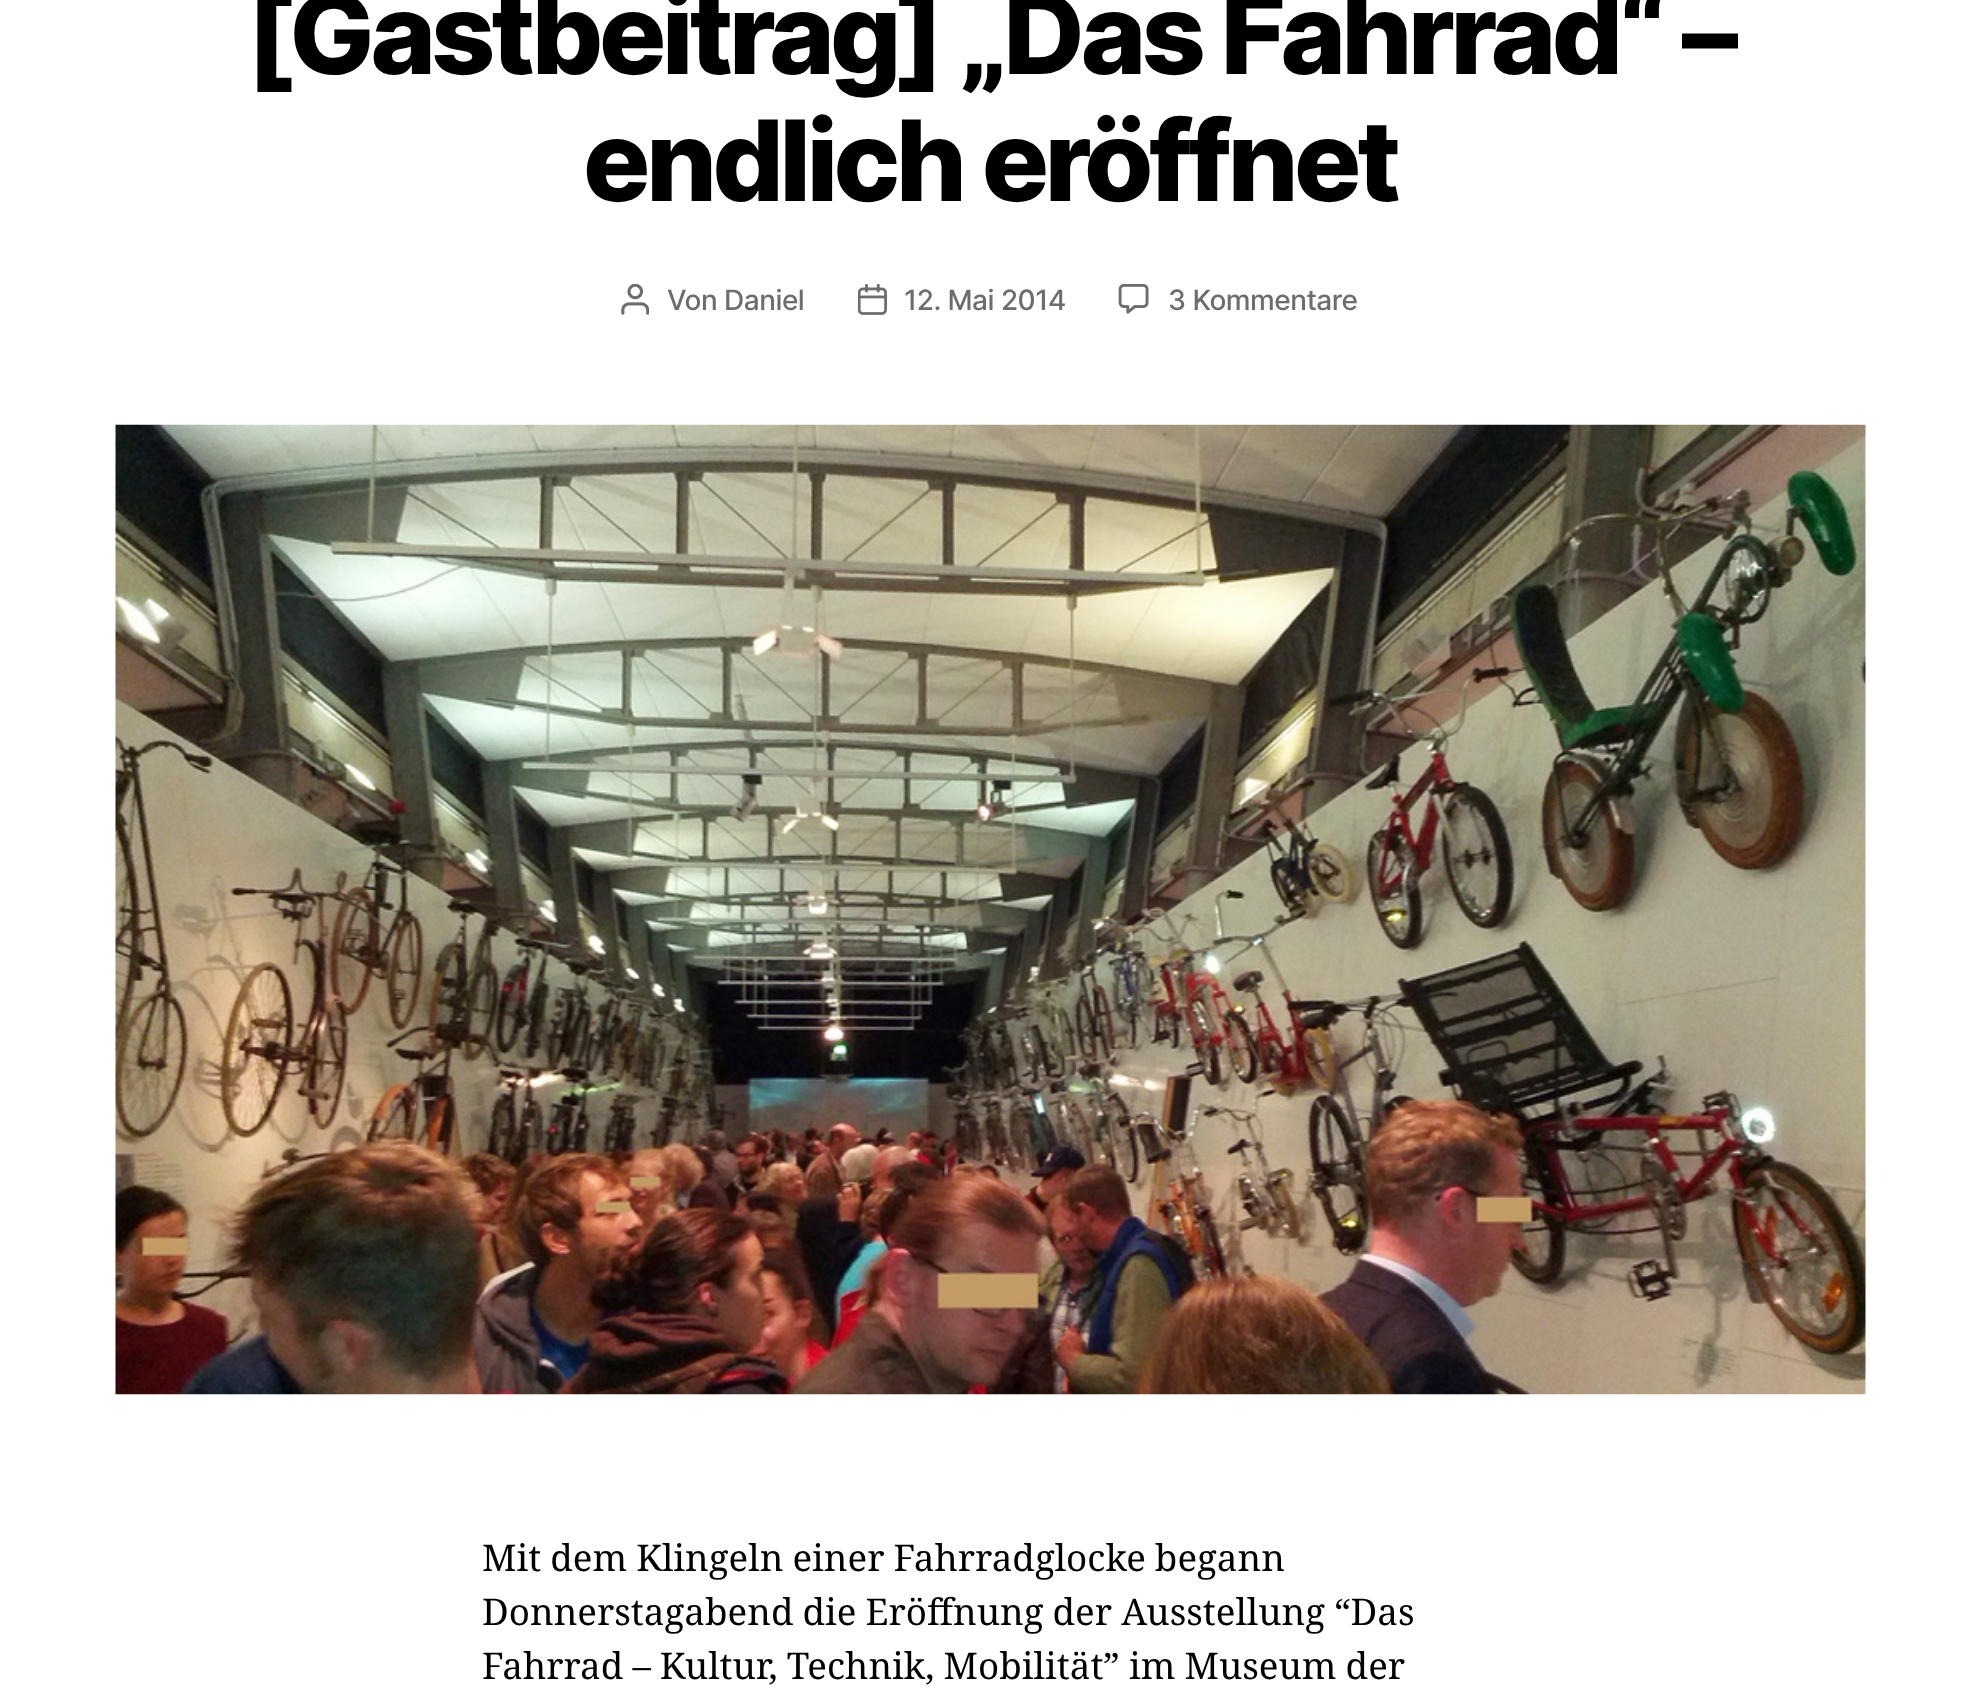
<svg xmlns="http://www.w3.org/2000/svg" width="1978" height="1699" viewBox="0 0 1978 1699">
  <rect width="100%" height="100%" fill="#fff"/>
  <image x="621" y="284" width="28" height="31" href="img/1.png"/>
  <image x="858" y="284" width="29" height="31" href="img/2.png"/>
  <image x="1118" y="284" width="31" height="30" href="img/3.png"/>
  <image x="115" y="424" width="1751" height="971" href="img/4.png"/>
  <g font-family="Inter" font-size="112" font-weight="800" letter-spacing="-4.65" fill="#000">
    <text x="246" y="74">[Gastbeitrag] „Das Fahrrad“ –</text>
    <text x="583" y="201">endlich eröffnet</text>
  </g>
  <g font-family="Inter" font-size="28" font-weight="500" letter-spacing="-0.5" fill="#6d6d6d">
    <text x="667" y="310">Von Daniel</text>
    <text x="904" y="310">12. Mai 2014</text>
    <text x="1168" y="310">3 Kommentare</text>
  </g>
  <g font-family="Noto Serif" font-size="36.75" fill="#000">
    <text x="482" y="1571" word-spacing="-0.5">Mit dem Klingeln einer Fahrradglocke begann</text>
    <text x="482" y="1625" word-spacing="-0.5">Donnerstagabend die Eröffnung der Ausstellung “Das</text>
    <text x="482" y="1679" word-spacing="-0.5">Fahrrad – Kultur, Technik, Mobilität” im Museum der</text>
  </g>
</svg>
